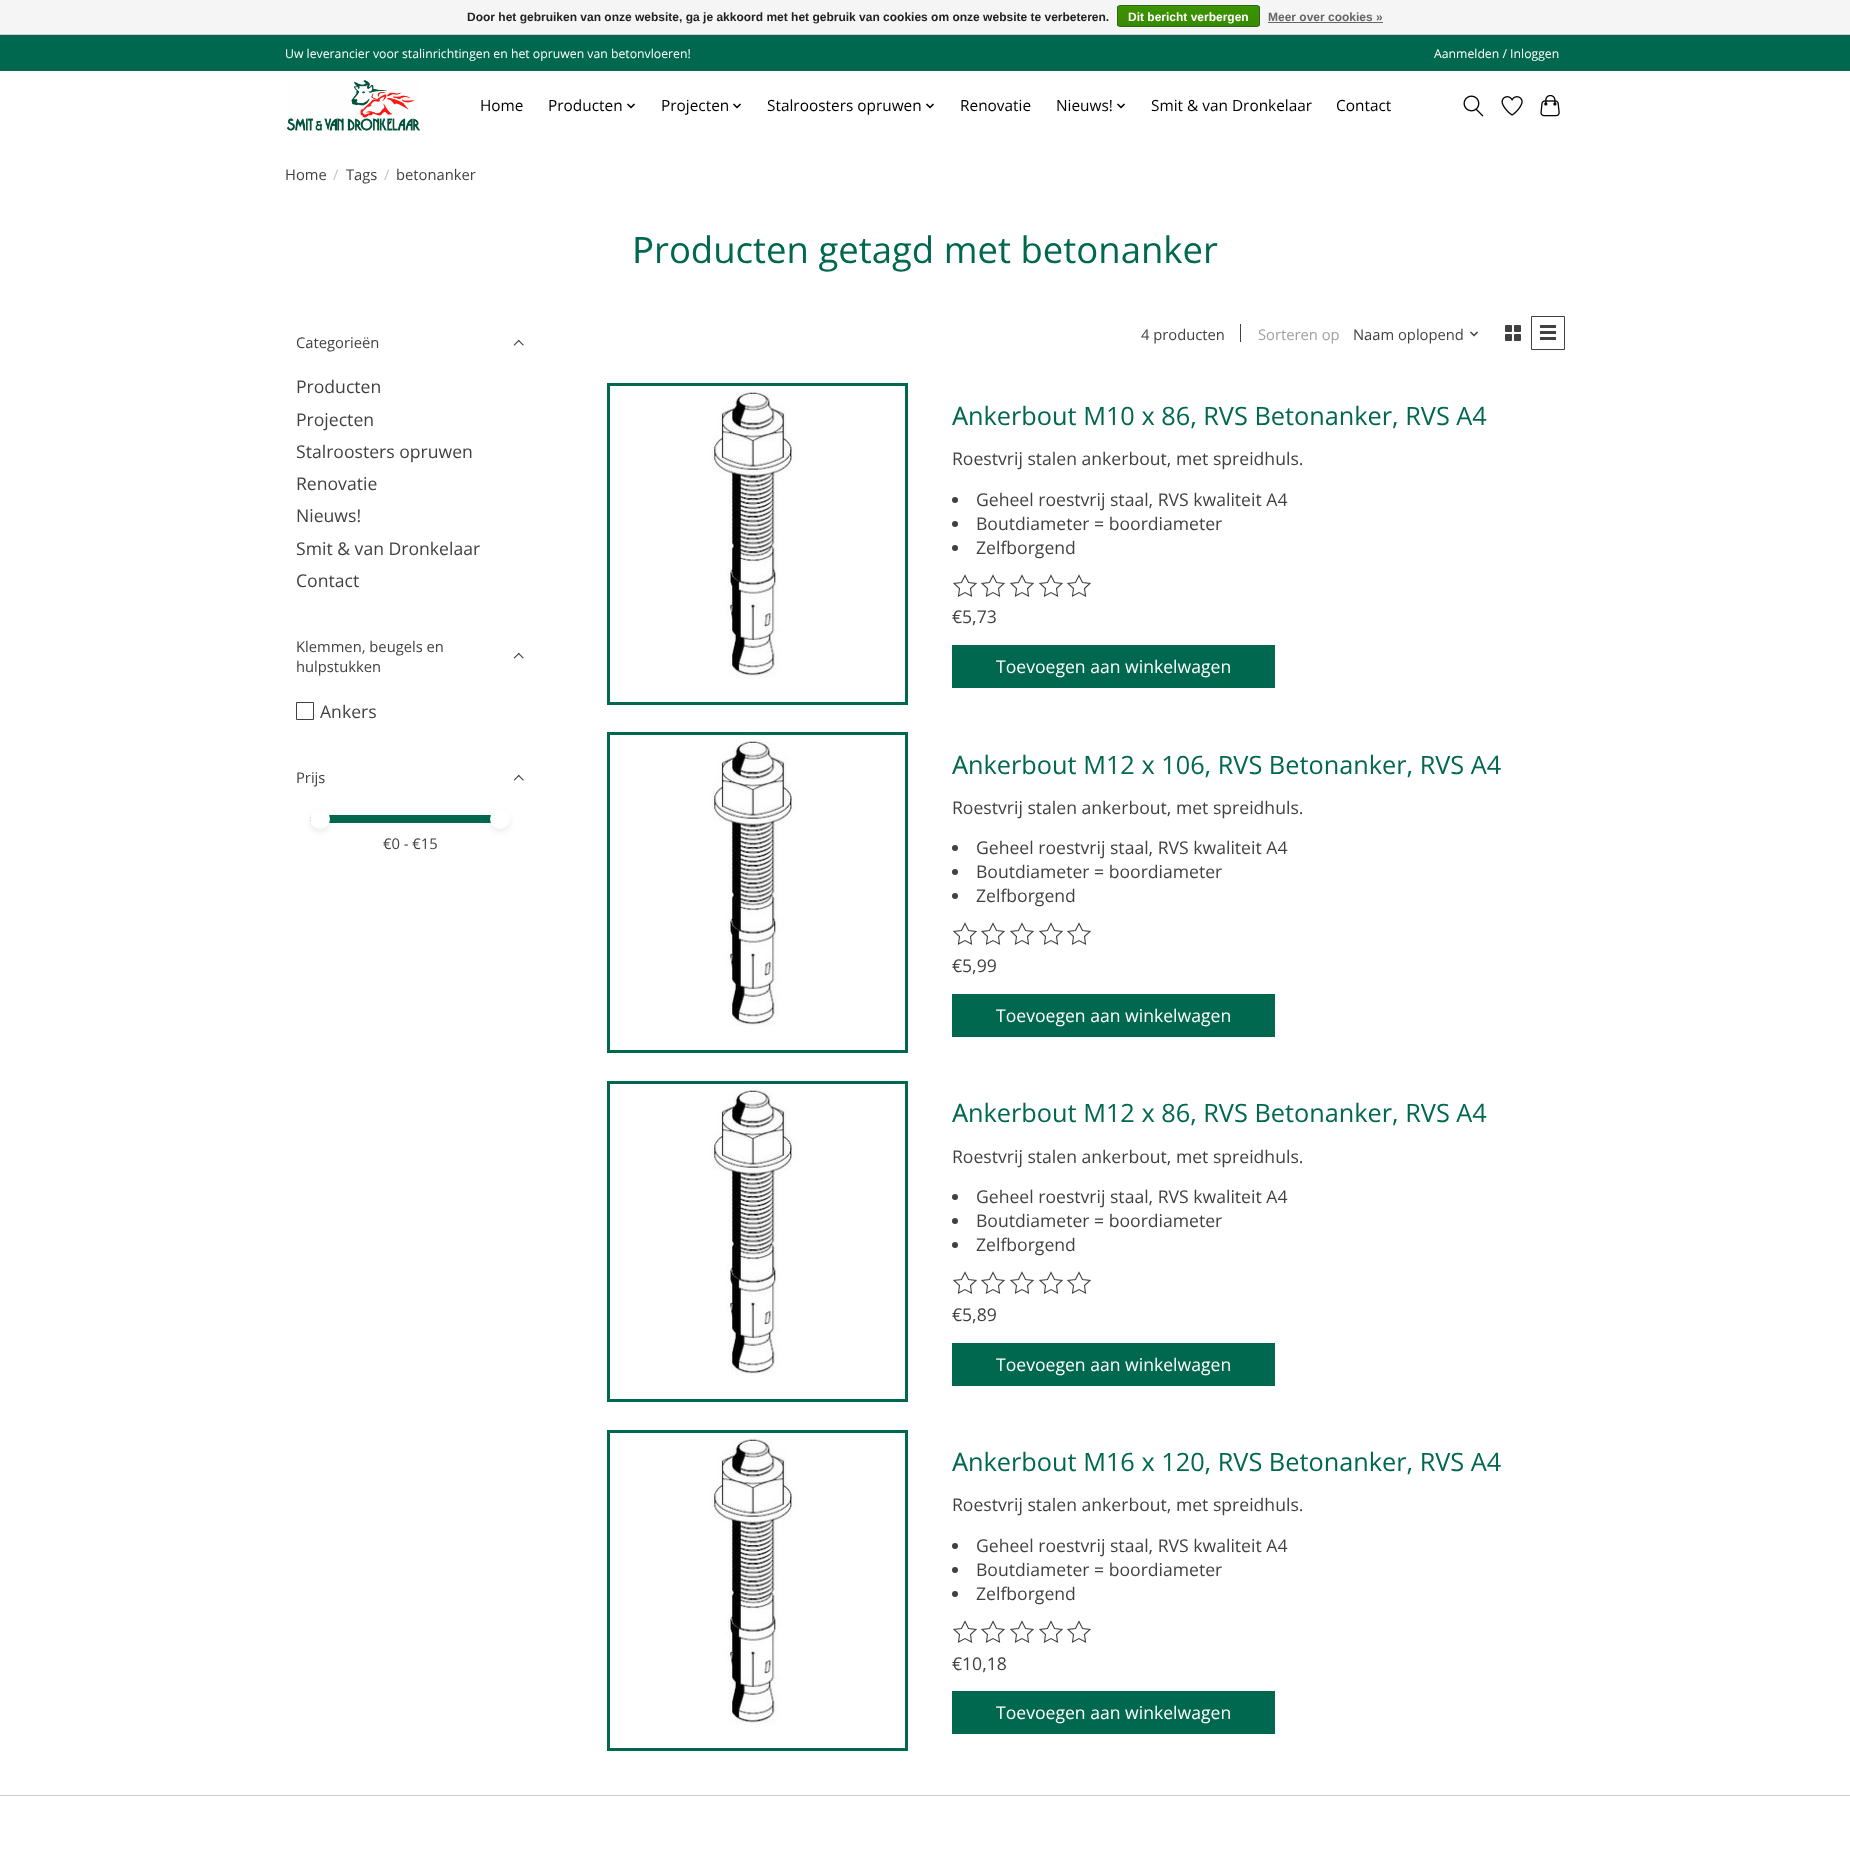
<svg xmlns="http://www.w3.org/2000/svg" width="1850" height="1869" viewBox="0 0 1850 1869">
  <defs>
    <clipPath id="clip1"><rect x="1117" y="5" width="143" height="22" rx="3"/></clipPath>
    <linearGradient id="g1" gradientUnits="userSpaceOnUse" x1="1189" y1="6" x2="1189" y2="26"><stop offset="0" stop-color="#3c9300"/><stop offset="1" stop-color="#398a00"/></linearGradient>
  </defs>
  <rect width="100%" height="100%" fill="#fff"/>
  <path d="M0 0h1850v34H0z" fill="#f5f5f5"/>
  <path d="M0 34h1850v1H0z" fill="#ccc"/>
  <g clip-path="url(#clip1)">
    <path d="M1117 6h143v20H1117z" fill="url(#g1)"/>
  </g>
  <rect x="1117.5" y="5.5" width="142" height="21" rx="2.5" fill="none" stroke="#29691d"/>
  <path d="M1268 22h115v1H1268z" fill="#666"/>
  <path d="M0 35h1850v36H0z" fill="#00684e"/>
  <image x="286" y="80" width="134" height="51" href="img/1.png"/>
  <image x="627" y="103" width="8" height="6" href="img/2.png"/>
  <image x="733" y="103" width="8" height="6" href="img/2.png"/>
  <image x="926" y="103" width="8" height="6" href="img/2.png"/>
  <image x="1117" y="103" width="8" height="6" href="img/2.png"/>
  <image x="1463" y="95" width="21" height="22" href="img/3.png"/>
  <image x="1501" y="96" width="22" height="20" href="img/4.png"/>
  <image x="1540" y="95" width="20" height="22" href="img/5.png"/>
  <image x="513" y="339" width="11" height="7" href="img/6.png"/>
  <image x="513" y="652" width="11" height="7" href="img/6.png"/>
  <path d="M296.5 702.5h17v17H296.5z" fill="none" stroke="#414141"/>
  <image x="513" y="774" width="11" height="7" href="img/6.png"/>
  <path d="M314 815H500V823H314C312 823 310 821 310 819C310 817 312 815 314 815Z" fill="#00684e"/>
  <rect x="310" y="812" width="20" height="20" rx="10" fill="#00000014" filter="blur(3px)"/>
  <circle cx="320" cy="819" r="10" fill="#fff"/>
  <rect x="490" y="812" width="20" height="20" rx="10" fill="#00000014" filter="blur(3px)"/>
  <circle cx="500" cy="819" r="10" fill="#fff"/>
  <path d="M1240 324h1v18H1240z" fill="#414141"/>
  <image x="1470" y="331" width="8" height="6" href="img/7.png"/>
  <image x="1505" y="325" width="16" height="16" href="img/8.png"/>
  <path d="M1531.5 316.5h33v33H1531.5z" fill="none" stroke="#414141"/>
  <path d="M1540 325h16v3H1540z" fill="#414141"/>
  <path d="M1540 331h16v3H1540z" fill="#414141"/>
  <path d="M1540 337h16v3H1540z" fill="#414141"/>
  <path d="M608.5 384.5h298v319H608.5z" fill="none" stroke="#00684e" stroke-width="3"/>
  <image x="610" y="386" width="295" height="295" href="img/9.png"/>
  <circle cx="955" cy="500" r="3" fill="#414141"/>
  <circle cx="955" cy="524" r="3" fill="#414141"/>
  <circle cx="955" cy="548" r="3" fill="#414141"/>
  <path d="M965 575.5L968.5 582.5L976 583.5L970.5 588.5L971.5 596L965 592.5L958.5 596L959.5 588.5L954 583.5L961.5 582.5ZM993 575.5L996.5 582.5L1004 583.5L998.5 588.5L999.5 596L993 592.5L986.5 596L987.5 588.5L982 583.5L989.5 582.5Z" fill="none" stroke="#414141" stroke-width="1.1"/>
  <path d="M1022 575.5L1025.5 582.5L1033 583.5L1027.5 588.5L1028.5 596L1022 592.5L1015.5 596L1016.5 588.5L1011 583.5L1018.5 582.5ZM1051 575.5L1054.5 582.5L1062 583.5L1056.5 588.5L1057.5 596L1051 592.5L1044.5 596L1045.5 588.5L1040 583.5L1047.5 582.5Z" fill="none" stroke="#414141" stroke-width="1.1"/>
  <path d="M1079 575.5L1082.5 582.5L1090 583.5L1084.5 588.5L1085.5 596L1079 592.5L1072.5 596L1073.5 588.5L1068 583.5L1075.5 582.5Z" fill="none" stroke="#414141" stroke-width="1.1"/>
  <path d="M952 645h323v43H952z" fill="#00684e"/>
  <path d="M608.5 733.5h298v318H608.5z" fill="none" stroke="#00684e" stroke-width="3"/>
  <image x="610" y="735" width="295" height="295" href="img/9.png"/>
  <circle cx="955" cy="848" r="3" fill="#414141"/>
  <circle cx="955" cy="872" r="3" fill="#414141"/>
  <circle cx="955" cy="896" r="3" fill="#414141"/>
  <path d="M965 923.5L968.5 930.5L976 931.5L970.5 936.5L971.5 944L965 940.5L958.5 944L959.5 936.5L954 931.5L961.5 930.5ZM993 923.5L996.5 930.5L1004 931.5L998.5 936.5L999.5 944L993 940.5L986.5 944L987.5 936.5L982 931.5L989.5 930.5Z" fill="none" stroke="#414141" stroke-width="1.1"/>
  <path d="M1022 923.5L1025.5 930.5L1033 931.5L1027.5 936.5L1028.5 944L1022 940.5L1015.5 944L1016.5 936.5L1011 931.5L1018.5 930.5ZM1051 923.5L1054.5 930.5L1062 931.5L1056.5 936.5L1057.5 944L1051 940.5L1044.5 944L1045.5 936.5L1040 931.5L1047.5 930.5Z" fill="none" stroke="#414141" stroke-width="1.1"/>
  <path d="M1079 923.5L1082.5 930.5L1090 931.5L1084.5 936.5L1085.5 944L1079 940.5L1072.5 944L1073.5 936.5L1068 931.5L1075.5 930.5Z" fill="none" stroke="#414141" stroke-width="1.1"/>
  <path d="M952 994h323v43H952z" fill="#00684e"/>
  <path d="M608.5 1082.5h298v318H608.5z" fill="none" stroke="#00684e" stroke-width="3"/>
  <image x="610" y="1084" width="295" height="295" href="img/9.png"/>
  <circle cx="955" cy="1197" r="3" fill="#414141"/>
  <circle cx="955" cy="1221" r="3" fill="#414141"/>
  <circle cx="955" cy="1245" r="3" fill="#414141"/>
  <path d="M965 1272.5L968.5 1279.5L976 1280.5L970.5 1285.5L971.5 1293L965 1289.5L958.5 1293L959.5 1285.5L954 1280.5L961.5 1279.5ZM993 1272.5L996.5 1279.5L1004 1280.5L998.5 1285.5L999.5 1293L993 1289.5L986.5 1293L987.5 1285.5L982 1280.5L989.5 1279.5Z" fill="none" stroke="#414141" stroke-width="1.1"/>
  <path d="M1022 1272.5L1025.5 1279.5L1033 1280.5L1027.5 1285.5L1028.5 1293L1022 1289.5L1015.5 1293L1016.5 1285.5L1011 1280.5L1018.5 1279.5ZM1051 1272.5L1054.5 1279.5L1062 1280.5L1056.5 1285.5L1057.5 1293L1051 1289.5L1044.5 1293L1045.5 1285.5L1040 1280.5L1047.5 1279.5Z" fill="none" stroke="#414141" stroke-width="1.1"/>
  <path d="M1079 1272.5L1082.5 1279.5L1090 1280.5L1084.5 1285.5L1085.5 1293L1079 1289.5L1072.5 1293L1073.5 1285.5L1068 1280.5L1075.5 1279.5Z" fill="none" stroke="#414141" stroke-width="1.1"/>
  <path d="M952 1343h323v43H952z" fill="#00684e"/>
  <path d="M608.5 1431.5h298v318H608.5z" fill="none" stroke="#00684e" stroke-width="3"/>
  <image x="610" y="1433" width="295" height="295" href="img/9.png"/>
  <circle cx="955" cy="1546" r="3" fill="#414141"/>
  <circle cx="955" cy="1570" r="3" fill="#414141"/>
  <circle cx="955" cy="1594" r="3" fill="#414141"/>
  <path d="M965 1621.5L968.5 1628.5L976 1629.5L970.5 1634.5L971.5 1642L965 1638.5L958.5 1642L959.5 1634.5L954 1629.5L961.5 1628.5ZM993 1621.5L996.5 1628.5L1004 1629.5L998.5 1634.5L999.5 1642L993 1638.5L986.5 1642L987.5 1634.5L982 1629.5L989.5 1628.5Z" fill="none" stroke="#414141" stroke-width="1.1"/>
  <path d="M1022 1621.5L1025.5 1628.5L1033 1629.5L1027.5 1634.5L1028.5 1642L1022 1638.5L1015.5 1642L1016.5 1634.5L1011 1629.5L1018.5 1628.5ZM1051 1621.5L1054.5 1628.5L1062 1629.5L1056.5 1634.5L1057.5 1642L1051 1638.5L1044.5 1642L1045.5 1634.5L1040 1629.5L1047.5 1628.5Z" fill="none" stroke="#414141" stroke-width="1.1"/>
  <path d="M1079 1621.5L1082.5 1628.5L1090 1629.5L1084.5 1634.5L1085.5 1642L1079 1638.5L1072.5 1642L1073.5 1634.5L1068 1629.5L1075.5 1628.5Z" fill="none" stroke="#414141" stroke-width="1.1"/>
  <path d="M952 1691h323v43H952z" fill="#00684e"/>
  <path d="M0 1795h1850v1H0z" fill="#ccc"/>
  <text x="467" y="21" font-family="Liberation Sans" font-size="12" font-weight="bold" fill="#222">Door het gebruiken van onze website, ga je akkoord met het gebruik van cookies om onze website te verbeteren.</text>
  <text x="1128" y="21" font-family="Liberation Sans" font-size="12" font-weight="bold" fill="#fff">Dit bericht verbergen</text>
  <text x="1268" y="21" font-family="Liberation Sans" font-size="12" font-weight="bold" fill="#666">Meer over cookies »</text>
  <g font-family="Open Sans" font-size="12.25" fill="#fff">
    <text x="285" y="58">Uw leverancier voor stalinrichtingen en het opruwen van betonvloeren!</text>
    <text x="1434" y="58">Aanmelden / Inloggen</text>
  </g>
  <g font-family="Open Sans" font-size="15.4" fill="#000">
    <text x="480" y="111">Home</text>
    <text x="548" y="111">Producten</text>
    <text x="661" y="111">Projecten</text>
    <text x="767" y="111">Stalroosters opruwen</text>
    <text x="960" y="111">Renovatie</text>
    <text x="1056" y="111">Nieuws!</text>
    <text x="1151" y="111">Smit &amp; van Dronkelaar</text>
    <text x="1336" y="111">Contact</text>
  </g>
  <text x="285" y="180" font-family="Open Sans" font-size="14.75" fill="#414141">Home</text>
  <text x="333" y="180" font-family="Open Sans" font-size="14.75" fill="#c6c6c6">/</text>
  <text x="346" y="180" font-family="Open Sans" font-size="14.75" fill="#414141">Tags</text>
  <text x="384" y="180" font-family="Open Sans" font-size="14.75" fill="#c6c6c6">/</text>
  <text x="396" y="180" font-family="Open Sans" font-size="14.75" fill="#414141">betonanker</text>
  <text x="632" y="263" font-family="Noto Sans" font-size="36.5" fill="#00684e">P</text>
  <text x="654" y="263" font-family="Open Sans" font-size="36.5" fill="#00684e">roducten getagd met betonanker</text>
  <text x="296" y="348" font-family="Open Sans" font-size="14.75" fill="#414141">Categorieën</text>
  <g font-family="Open Sans" font-size="17.6" fill="#414141">
    <text x="296" y="393">Producten</text>
    <text x="296" y="426">Projecten</text>
    <text x="296" y="458">Stalroosters opruwen</text>
    <text x="296" y="490">Renovatie</text>
    <text x="296" y="522">Nieuws!</text>
    <text x="296" y="555">Smit &amp; van Dronkelaar</text>
    <text x="296" y="587">Contact</text>
  </g>
  <g font-family="Open Sans" font-size="14.75" fill="#414141">
    <text x="296" y="652">Klemmen, beugels en</text>
    <text x="296" y="672">hulpstukken</text>
  </g>
  <text x="320" y="718" font-family="Open Sans" font-size="17.6" fill="#414141">Ankers</text>
  <g font-family="Open Sans" font-size="14.75" fill="#414141">
    <text x="296" y="783">Prijs</text>
    <text x="383" y="849">€0 - €15</text>
    <text x="1141" y="340">4 producten</text>
  </g>
  <text x="1258" y="340" font-family="Open Sans" font-size="14.75" fill="#a0a0a0">Sorteren op</text>
  <text x="1353" y="340" font-family="Open Sans" font-size="14.75" fill="#414141">Naam oplopend</text>
  <text x="952" y="425" font-family="Noto Sans" font-size="25.3" fill="#00684e">A</text>
  <text x="968" y="425" font-family="Open Sans" font-size="25.3" fill="#00684e">nkerbout M10 x 86, RVS Betonanker, RVS A4</text>
  <g font-family="Open Sans" font-size="17.6" fill="#414141">
    <text x="952" y="465">Roestvrij stalen ankerbout, met spreidhuls.</text>
    <text x="976" y="506">Geheel roestvrij staal, RVS kwaliteit A4</text>
    <text x="976" y="530">Boutdiameter = boordiameter</text>
    <text x="976" y="554">Zelfborgend</text>
    <text x="952" y="623">€5,73</text>
  </g>
  <text x="996" y="673" font-family="Open Sans" font-size="17.6" fill="#fff">Toevoegen aan winkelwagen</text>
  <text x="952" y="774" font-family="Noto Sans" font-size="25.3" fill="#00684e">A</text>
  <text x="968" y="774" font-family="Open Sans" font-size="25.3" fill="#00684e">nkerbout M12 x 106, RVS Betonanker, RVS A4</text>
  <g font-family="Open Sans" font-size="17.6" fill="#414141">
    <text x="952" y="814">Roestvrij stalen ankerbout, met spreidhuls.</text>
    <text x="976" y="854">Geheel roestvrij staal, RVS kwaliteit A4</text>
    <text x="976" y="878">Boutdiameter = boordiameter</text>
    <text x="976" y="902">Zelfborgend</text>
    <text x="952" y="972">€5,99</text>
  </g>
  <text x="996" y="1022" font-family="Open Sans" font-size="17.6" fill="#fff">Toevoegen aan winkelwagen</text>
  <text x="952" y="1122" font-family="Noto Sans" font-size="25.3" fill="#00684e">A</text>
  <text x="968" y="1122" font-family="Open Sans" font-size="25.3" fill="#00684e">nkerbout M12 x 86, RVS Betonanker, RVS A4</text>
  <g font-family="Open Sans" font-size="17.6" fill="#414141">
    <text x="952" y="1163">Roestvrij stalen ankerbout, met spreidhuls.</text>
    <text x="976" y="1203">Geheel roestvrij staal, RVS kwaliteit A4</text>
    <text x="976" y="1227">Boutdiameter = boordiameter</text>
    <text x="976" y="1251">Zelfborgend</text>
    <text x="952" y="1321">€5,89</text>
  </g>
  <text x="996" y="1371" font-family="Open Sans" font-size="17.6" fill="#fff">Toevoegen aan winkelwagen</text>
  <text x="952" y="1471" font-family="Noto Sans" font-size="25.3" fill="#00684e">A</text>
  <text x="968" y="1471" font-family="Open Sans" font-size="25.3" fill="#00684e">nkerbout M16 x 120, RVS Betonanker, RVS A4</text>
  <g font-family="Open Sans" font-size="17.6" fill="#414141">
    <text x="952" y="1511">Roestvrij stalen ankerbout, met spreidhuls.</text>
    <text x="976" y="1552">Geheel roestvrij staal, RVS kwaliteit A4</text>
    <text x="976" y="1576">Boutdiameter = boordiameter</text>
    <text x="976" y="1600">Zelfborgend</text>
    <text x="952" y="1670">€10,18</text>
  </g>
  <text x="996" y="1719" font-family="Open Sans" font-size="17.6" fill="#fff">Toevoegen aan winkelwagen</text>
</svg>
